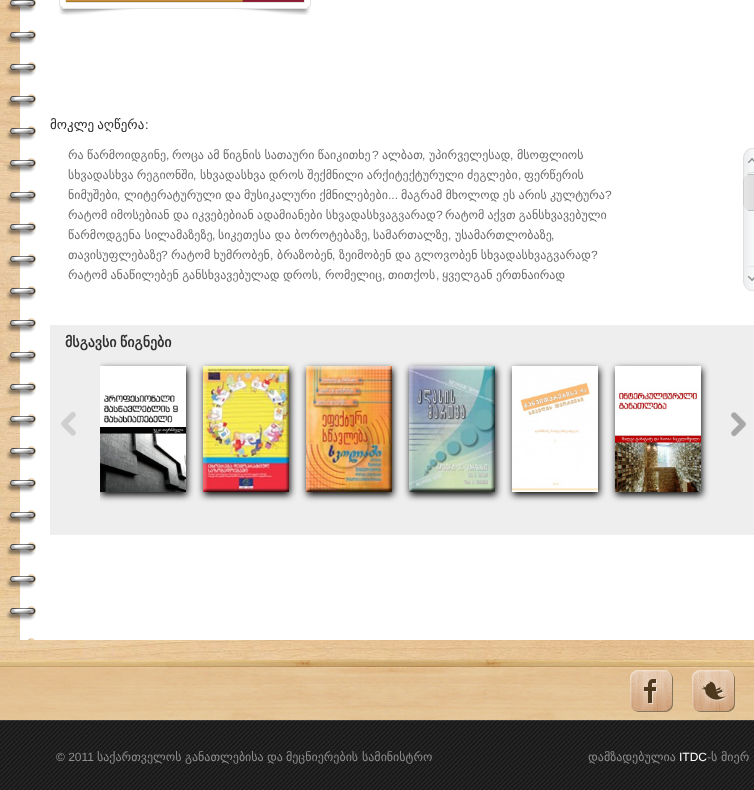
<svg xmlns="http://www.w3.org/2000/svg" width="754" height="790" viewBox="0 0 754 790">
  <defs>
    <clipPath id="clip1"><path d="M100 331h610v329H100z"/></clipPath>
  </defs>
  <rect width="100%" height="100%" fill="#fff"/>
  <image x="0" y="0" width="754" height="660" href="img/1.png"/>
  <image x="6" y="0" width="748" height="640" href="img/2.png"/>
  <image x="59" y="0" width="252" height="15" href="img/3.png"/>
  <image x="66" y="0" width="238" height="2" href="img/4.png"/>
  <image x="743" y="148" width="11" height="26" href="img/5.png"/>
  <image x="743" y="174" width="11" height="92" href="img/6.png"/>
  <rect x="743" y="174" width="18" height="37" rx="9" fill="#bbd"/>
  <image x="743" y="175" width="11" height="35" href="img/7.png"/>
  <path d="M748 174h6v1H748z" fill="#bfbfbf"/>
  <path d="M748 210h6v1H748z" fill="#bfbfbf"/>
  <image x="743" y="266" width="11" height="25" href="img/8.png"/>
  <path d="M50 325h704v210H50z" fill="#eee"/>
  <image x="61" y="411" width="15" height="25" href="img/9.png"/>
  <g clip-path="url(#clip1)">
    <path d="M101 369h86v126H101z" fill="#000" filter="blur(3.5px)"/>
  </g>
  <image x="100" y="366" width="86" height="126" href="img/10.png"/>
  <path d="M204 369h86v126H204z" fill="#000" filter="blur(3.5px)"/>
  <image x="203" y="366" width="86" height="126" href="img/11.png"/>
  <path d="M307 369h86v126H307z" fill="#000" filter="blur(3.5px)"/>
  <image x="306" y="366" width="86" height="126" href="img/12.png"/>
  <path d="M410 369h86v126H410z" fill="#000" filter="blur(3.5px)"/>
  <image x="409" y="366" width="86" height="126" href="img/13.png"/>
  <path d="M513 369h86v126H513z" fill="#000" filter="blur(3.5px)"/>
  <image x="512" y="366" width="86" height="126" href="img/14.png"/>
  <path d="M616 369h86v126H616z" fill="#000" filter="blur(3.5px)"/>
  <image x="615" y="366" width="86" height="126" href="img/15.png"/>
  <image x="731" y="412" width="16" height="25" href="img/16.png"/>
  <image x="0" y="660" width="754" height="60" href="img/17.png"/>
  <image x="630" y="670" width="43" height="42" href="img/18.png"/>
  <image x="692" y="670" width="43" height="42" href="img/19.png"/>
  <image x="0" y="720" width="754" height="70" href="img/20.png"/>
  <text x="50" y="129" word-spacing="-1" font-family="DejaVu Sans" font-size="13" fill="#2e2e2e">მოკლე აღწერა</text>
  <text x="145" y="129" font-family="Liberation Sans" font-size="13" fill="#2e2e2e">:</text>
  <text x="68" y="159" word-spacing="-0.5" font-family="DejaVu Sans" font-size="12" fill="#6d6d6d">რა წარმოიდგინე</text>
  <text x="166" y="159" font-family="Liberation Sans" font-size="12" fill="#6d6d6d">,</text>
  <text x="172" y="159" word-spacing="-0.5" font-family="DejaVu Sans" font-size="12" fill="#6d6d6d">როცა ამ წიგნის სათაური წაიკითხე</text>
  <text x="372" y="159" font-family="Liberation Sans" font-size="12" fill="#6d6d6d">?</text>
  <text x="382" y="159" font-family="DejaVu Sans" font-size="12" fill="#6d6d6d">ალბათ</text>
  <text x="422" y="159" font-family="Liberation Sans" font-size="12" fill="#6d6d6d">,</text>
  <text x="429" y="159" font-family="DejaVu Sans" font-size="12" fill="#6d6d6d">უპირველესად</text>
  <text x="510" y="159" font-family="Liberation Sans" font-size="12" fill="#6d6d6d">,</text>
  <g font-family="DejaVu Sans" font-size="12" fill="#6d6d6d">
    <text x="517" y="159">მსოფლიოს</text>
    <text x="68" y="179" word-spacing="-0.5">სხვადასხვა რეგიონში</text>
  </g>
  <text x="193" y="179" font-family="Liberation Sans" font-size="12" fill="#6d6d6d">,</text>
  <text x="200" y="179" word-spacing="-0.5" font-family="DejaVu Sans" font-size="12" fill="#6d6d6d">სხვადასხვა დროს შექმნილი არქიტექტურული ძეგლები</text>
  <text x="518" y="179" font-family="Liberation Sans" font-size="12" fill="#6d6d6d">,</text>
  <g font-family="DejaVu Sans" font-size="12" fill="#6d6d6d">
    <text x="524" y="179">ფერწერის</text>
    <text x="68" y="199">ნიმუშები</text>
  </g>
  <text x="117" y="199" font-family="Liberation Sans" font-size="12" fill="#6d6d6d">,</text>
  <text x="124" y="199" word-spacing="-0.5" font-family="DejaVu Sans" font-size="12" fill="#6d6d6d">ლიტერატურული და მუსიკალური ქმნილებები</text>
  <text x="388" y="199" font-family="Liberation Sans" font-size="12" fill="#6d6d6d">...</text>
  <text x="401" y="199" word-spacing="-0.5" font-family="DejaVu Sans" font-size="12" fill="#6d6d6d">მაგრამ მხოლოდ ეს არის კულტურა</text>
  <text x="605" y="199" font-family="Liberation Sans" font-size="12" fill="#6d6d6d">?</text>
  <text x="68" y="219" word-spacing="-0.5" font-family="DejaVu Sans" font-size="12" fill="#6d6d6d">რატომ იმოსებიან და იკვებებიან ადამიანები სხვადასხვაგვარად</text>
  <text x="436" y="219" font-family="Liberation Sans" font-size="12" fill="#6d6d6d">?</text>
  <g font-family="DejaVu Sans" font-size="12" fill="#6d6d6d">
    <text x="445" y="219" word-spacing="-0.5">რატომ აქვთ განსხვავებული</text>
    <text x="68" y="239">წარმოდგენა სილამაზეზე</text>
  </g>
  <text x="212" y="239" font-family="Liberation Sans" font-size="12" fill="#6d6d6d">,</text>
  <text x="218" y="239" font-family="DejaVu Sans" font-size="12" fill="#6d6d6d">სიკეთესა და ბოროტებაზე</text>
  <text x="367" y="239" font-family="Liberation Sans" font-size="12" fill="#6d6d6d">,</text>
  <text x="373" y="239" font-family="DejaVu Sans" font-size="12" fill="#6d6d6d">სამართალზე</text>
  <text x="448" y="239" font-family="Liberation Sans" font-size="12" fill="#6d6d6d">,</text>
  <text x="455" y="239" font-family="DejaVu Sans" font-size="12" fill="#6d6d6d">უსამართლობაზე</text>
  <text x="551" y="239" font-family="Liberation Sans" font-size="12" fill="#6d6d6d">,</text>
  <text x="68" y="259" font-family="DejaVu Sans" font-size="12" fill="#6d6d6d">თავისუფლებაზე</text>
  <text x="161" y="259" font-family="Liberation Sans" font-size="12" fill="#6d6d6d">?</text>
  <text x="171" y="259" word-spacing="-0.5" font-family="DejaVu Sans" font-size="12" fill="#6d6d6d">რატომ ხუმრობენ</text>
  <text x="270" y="259" font-family="Liberation Sans" font-size="12" fill="#6d6d6d">,</text>
  <text x="277" y="259" font-family="DejaVu Sans" font-size="12" fill="#6d6d6d">ბრაზობენ</text>
  <text x="332" y="259" font-family="Liberation Sans" font-size="12" fill="#6d6d6d">,</text>
  <text x="339" y="259" word-spacing="-0.5" font-family="DejaVu Sans" font-size="12" fill="#6d6d6d">ზეიმობენ და გლოვობენ სხვადასხვაგვარად</text>
  <text x="591" y="259" font-family="Liberation Sans" font-size="12" fill="#6d6d6d">?</text>
  <text x="68" y="279" word-spacing="-0.5" font-family="DejaVu Sans" font-size="12" fill="#6d6d6d">რატომ ანაწილებენ განსხვავებულად დროს</text>
  <text x="318" y="279" font-family="Liberation Sans" font-size="12" fill="#6d6d6d">,</text>
  <text x="325" y="279" font-family="DejaVu Sans" font-size="12" fill="#6d6d6d">რომელიც</text>
  <text x="382" y="279" font-family="Liberation Sans" font-size="12" fill="#6d6d6d">,</text>
  <text x="388" y="279" font-family="DejaVu Sans" font-size="12" fill="#6d6d6d">თითქოს</text>
  <text x="436" y="279" font-family="Liberation Sans" font-size="12" fill="#6d6d6d">,</text>
  <text x="442" y="279" word-spacing="-0.5" font-family="DejaVu Sans" font-size="12" fill="#6d6d6d">ყველგან ერთნაირად</text>
  <text x="65" y="347" word-spacing="-1" font-family="DejaVu Sans" font-size="14" font-weight="bold" fill="#2e2e2e">მსგავსი წიგნები</text>
  <text x="56" y="761" font-family="Liberation Sans" font-size="12" fill="#8d8d8d">© 2011</text>
  <g font-family="DejaVu Sans" font-size="12" fill="#8d8d8d">
    <text x="97" y="761">საქართველოს</text>
    <text x="185" y="761">განათლებისა</text>
    <text x="267" y="761">და</text>
    <text x="286" y="761">მეცნიერების</text>
    <text x="362" y="761">სამინისტრო</text>
    <text x="588" y="761">დამზადებულია</text>
  </g>
  <text x="679" y="761" font-family="Liberation Sans" font-size="12" fill="#fff">ITDC</text>
  <text x="707" y="761" font-family="Liberation Sans" font-size="12" fill="#8d8d8d">-</text>
  <text x="711" y="761" font-family="DejaVu Sans" font-size="12" fill="#8d8d8d">ს მიერ</text>
</svg>
